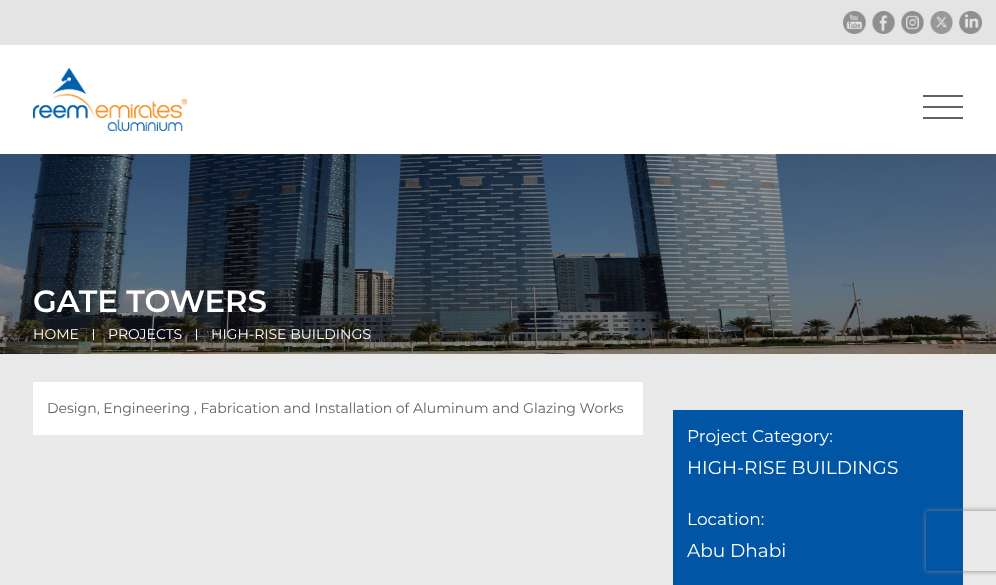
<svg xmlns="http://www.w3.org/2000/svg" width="996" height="585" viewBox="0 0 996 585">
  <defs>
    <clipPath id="clip1"><path d="M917 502H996V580H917ZM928 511H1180C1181 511 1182 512 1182 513V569C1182 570 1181 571 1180 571H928C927 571 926 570 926 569V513C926 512 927 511 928 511Z" clip-rule="evenodd"/></clipPath>
  </defs>
  <rect width="100%" height="100%" fill="#fff"/>
  <path d="M0 0h996v45H0z" fill="#e4e4e4"/>
  <image x="843" y="11" width="23" height="23" href="img/1.png"/>
  <image x="872" y="11" width="23" height="23" href="img/2.png"/>
  <image x="901" y="11" width="23" height="23" href="img/3.png"/>
  <image x="930" y="11" width="23" height="23" href="img/4.png"/>
  <image x="959" y="11" width="23" height="23" href="img/5.png"/>
  <image x="33" y="68" width="154" height="63" href="img/6.png"/>
  <path d="M923 95h40v2H923z" fill="#626262"/>
  <path d="M923 106h40v2H923z" fill="#626262"/>
  <path d="M923 117h40v2H923z" fill="#626262"/>
  <image x="0" y="154" width="996" height="200" href="img/7.png"/>
  <path d="M93 329h1v11H93z" fill="#fff"/>
  <path d="M196 329h1v11H196z" fill="#fff"/>
  <path d="M0 354h996v231H0z" fill="#e9e9ea"/>
  <path d="M33 382h610v53H33z" fill="#fff"/>
  <path d="M673 410h290v175H673z" fill="#0055a5"/>
  <g clip-path="url(#clip1)">
    <rect x="926" y="511" width="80" height="60" rx="2" fill="#808080" filter="blur(2.5px)"/>
  </g>
  <text x="33" y="312" font-family="Montserrat" font-size="30.75" font-weight="600" fill="#fff">GATE TOWERS</text>
  <g font-family="Montserrat" font-size="14" fill="#fff">
    <text x="33" y="339">HOME</text>
    <text x="108" y="339">PROJECTS</text>
    <text x="211" y="339">HIGH-RISE BUILDINGS</text>
  </g>
  <text x="47" y="413" font-family="Montserrat" font-size="14" fill="#626262">Design, Engineering , Fabrication and Installation of Aluminum and Glazing Works</text>
  <text x="687" y="442" font-family="Montserrat" font-size="17" fill="#fff">Project Category:</text>
  <text x="687" y="474" font-family="Montserrat" font-size="18.5" fill="#fff">HIGH-RISE BUILDINGS</text>
  <text x="687" y="525" font-family="Montserrat" font-size="17" fill="#fff">Location:</text>
  <text x="687" y="557" font-family="Montserrat" font-size="18.5" fill="#fff">Abu Dhabi</text>
</svg>
